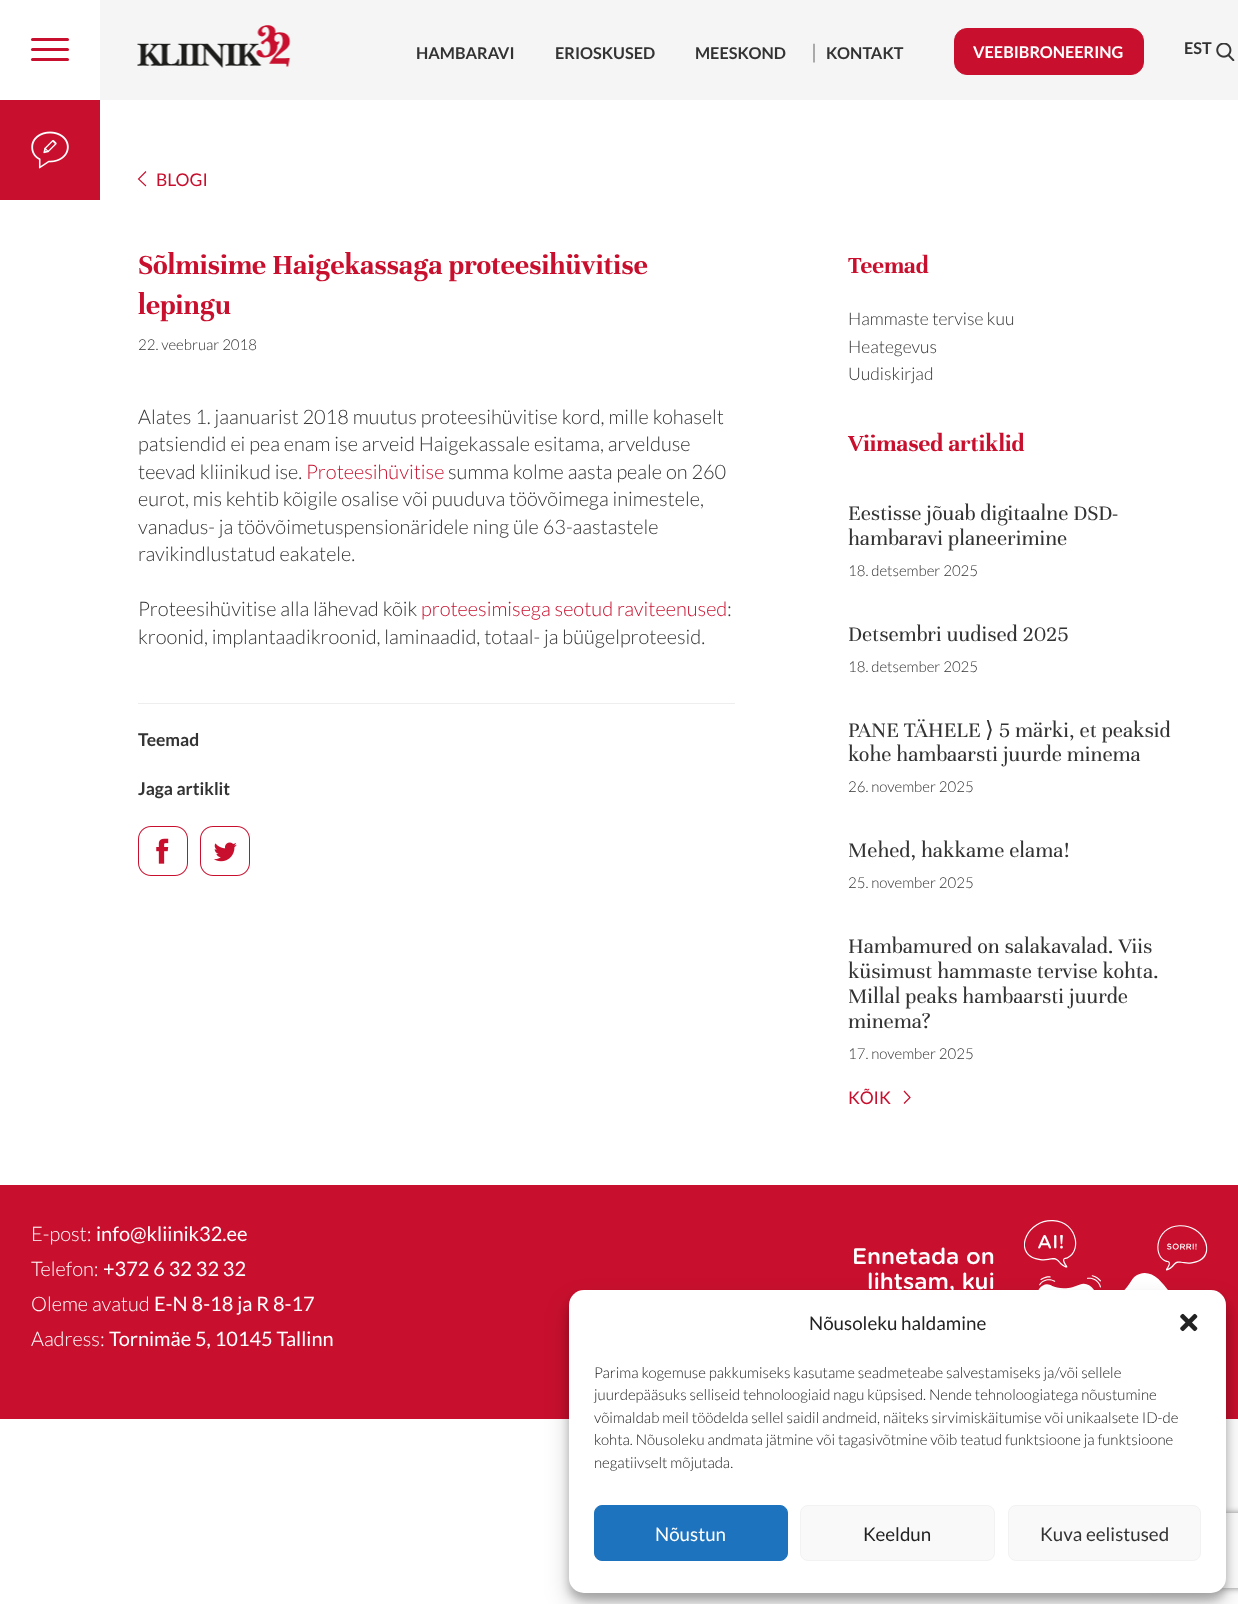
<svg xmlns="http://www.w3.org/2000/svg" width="1238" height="1604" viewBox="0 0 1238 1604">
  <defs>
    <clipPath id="clip1"><path d="M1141 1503H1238V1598H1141ZM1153.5 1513H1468.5C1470 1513 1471 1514 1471 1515.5V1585.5C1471 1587 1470 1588 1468.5 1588H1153.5C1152 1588 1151 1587 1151 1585.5V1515.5C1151 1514 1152 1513 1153.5 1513Z" clip-rule="evenodd"/></clipPath>
  </defs>
  <rect width="100%" height="100%" fill="#fff"/>
  <path d="M100 0h1138v100H100z" fill="#f5f5f5"/>
  <rect x="31" y="38" width="38" height="3" rx="1.5" fill="#c8102e"/>
  <rect x="31" y="48" width="38" height="3" rx="1.5" fill="#c8102e"/>
  <rect x="31" y="58" width="38" height="3" rx="1.5" fill="#c8102e"/>
  <image x="137" y="25" width="154" height="43" href="img/1.png"/>
  <rect x="954.5" y="28.5" width="189" height="46" rx="12.5" fill="#c8102e" stroke="#c8102e"/>
  <image x="1216" y="43" width="19" height="18" href="img/2.png"/>
  <path d="M0 100h100v100H0z" fill="#c8102e"/>
  <image x="31" y="131" width="38" height="38" href="img/3.png"/>
  <path d="M146 171.5L138.5 179L146 186" fill="none" stroke="#c8102e" stroke-width="1.1"/>
  <path d="M138 703h597v1H138z" fill="#eee"/>
  <image x="138" y="826" width="50" height="50" href="img/4.png"/>
  <image x="200" y="826" width="50" height="50" href="img/5.png"/>
  <path d="M904 1091L910 1097.5L904 1103.5" fill="none" stroke="#c8102e" stroke-width="1.2"/>
  <path d="M0 1185h1238v234H0z" fill="#c8102e"/>
  <image x="1024" y="1220" width="184" height="70" href="img/6.png"/>
  <rect x="569" y="1298" width="657" height="302" rx="15" fill="#0000003b" filter="blur(4px)"/>
  <rect x="569" y="1303" width="657" height="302" rx="15" fill="#00000030" filter="blur(12.5px)"/>
  <g clip-path="url(#clip1)">
    <rect x="1151" y="1513" width="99" height="75" rx="2.5" fill="#808080" filter="blur(3px)"/>
  </g>
  <rect x="569" y="1290" width="657" height="303" rx="15" fill="#fff"/>
  <image x="1180" y="1313" width="18" height="19" href="img/7.png"/>
  <rect x="594.5" y="1505.5" width="193" height="55" rx="7.5" fill="#1e73be" stroke="#1e73be"/>
  <rect x="800.5" y="1505.5" width="194" height="55" rx="7.5" fill="#f9f9f9" stroke="#f2f2f2"/>
  <rect x="1008.5" y="1505.5" width="192" height="55" rx="7.5" fill="#f9f9f9" stroke="#f2f2f2"/>
  <g font-family="Lato" font-size="16.25" font-weight="bold" fill="#333">
    <text x="416" y="59">HAMBARAVI</text>
    <text x="555" y="59">ERIOSKUSED</text>
    <text x="695" y="59">MEESKOND</text>
  </g>
  <text x="811" y="59" font-family="Lato" font-size="20" font-weight="300" fill="#333">|</text>
  <text x="826" y="59" font-family="Lato" font-size="16.25" font-weight="bold" fill="#333">KONTAKT</text>
  <text x="973" y="58" font-family="Lato" font-size="16.25" font-weight="bold" fill="#fff">VEEBIBRONEERING</text>
  <text x="1184" y="54" font-family="Lato" font-size="16.25" font-weight="bold" fill="#333">EST</text>
  <text x="156" y="186" font-family="Lato" font-size="17.5" fill="#c8102e">BLOGI</text>
  <g font-family="Unna" font-size="30" font-weight="bold" fill="#c8102e">
    <text x="138" y="274">Sõlmisime Haigekassaga proteesihüvitise</text>
    <text x="138" y="314">lepingu</text>
  </g>
  <text x="138" y="350" font-family="Lato" font-size="15" font-weight="300" fill="#333">22. veebruar 2018</text>
  <g font-family="Lato" font-size="20" font-weight="300" fill="#333">
    <text x="138" y="424">Alates 1. jaanuarist 2018 muutus proteesihüvitise kord, mille kohaselt</text>
    <text x="138" y="451">patsiendid ei pea enam ise arveid Haigekassale esitama, arvelduse</text>
    <text x="138" y="479">teevad kliinikud ise.</text>
  </g>
  <text x="306" y="479" font-family="Lato" font-size="20" font-weight="300" fill="#c8102e">Proteesihüvitise</text>
  <g font-family="Lato" font-size="20" font-weight="300" fill="#333">
    <text x="448" y="479">summa kolme aasta peale on 260</text>
    <text x="138" y="506">eurot, mis kehtib kõigile osalise või puuduva töövõimega inimestele,</text>
    <text x="138" y="534">vanadus- ja töövõimetuspensionäridele ning üle 63-aastastele</text>
    <text x="138" y="561">ravikindlustatud eakatele.</text>
    <text x="138" y="616">Proteesihüvitise alla lähevad kõik</text>
  </g>
  <text x="421" y="616" font-family="Lato" font-size="20" font-weight="300" fill="#c8102e">proteesimisega seotud raviteenused</text>
  <g font-family="Lato" font-size="20" font-weight="300" fill="#333">
    <text x="727" y="616">:</text>
    <text x="138" y="644">kroonid, implantaadikroonid, laminaadid, totaal- ja büügelproteesid.</text>
  </g>
  <g font-family="Lato" font-size="17.5" font-weight="bold" fill="#333">
    <text x="138" y="746">Teemad</text>
    <text x="138" y="795">Jaga artiklit</text>
  </g>
  <text x="848" y="273" font-family="Unna" font-size="25" font-weight="bold" fill="#c8102e">Teemad</text>
  <g font-family="Lato" font-size="17.5" font-weight="300" fill="#333">
    <text x="848" y="325">Hammaste tervise kuu</text>
    <text x="848" y="353">Heategevus</text>
    <text x="848" y="380">Uudiskirjad</text>
  </g>
  <text x="848" y="451" font-family="Unna" font-size="25" font-weight="bold" fill="#c8102e">Viimased artiklid</text>
  <g font-family="Unna" font-size="22.5" fill="#333">
    <text x="848" y="520">Eestisse jõuab digitaalne DSD-</text>
    <text x="848" y="545">hambaravi planeerimine</text>
  </g>
  <text x="848" y="576" font-family="Lato" font-size="15" font-weight="300" fill="#333">18. detsember 2025</text>
  <text x="848" y="641" font-family="Unna" font-size="22.5" fill="#333">Detsembri uudised 2025</text>
  <text x="848" y="672" font-family="Lato" font-size="15" font-weight="300" fill="#333">18. detsember 2025</text>
  <text x="848" y="737" font-family="Unna" font-size="22.5" fill="#333">PANE TÄHELE</text>
  <text x="985" y="737" font-family="DejaVu Sans" font-size="22.5" fill="#333">⟩</text>
  <g font-family="Unna" font-size="22.5" fill="#333">
    <text x="999" y="737">5 märki, et peaksid</text>
    <text x="848" y="761">kohe hambaarsti juurde minema</text>
  </g>
  <text x="848" y="792" font-family="Lato" font-size="15" font-weight="300" fill="#333">26. november 2025</text>
  <text x="848" y="857" font-family="Unna" font-size="22.5" fill="#333">Mehed, hakkame elama!</text>
  <text x="848" y="888" font-family="Lato" font-size="15" font-weight="300" fill="#333">25. november 2025</text>
  <g font-family="Unna" font-size="22.5" fill="#333">
    <text x="848" y="953">Hambamured on salakavalad. Viis</text>
    <text x="848" y="978">küsimust hammaste tervise kohta.</text>
    <text x="848" y="1003">Millal peaks hambaarsti juurde</text>
    <text x="848" y="1028">minema?</text>
  </g>
  <text x="848" y="1059" font-family="Lato" font-size="15" font-weight="300" fill="#333">17. november 2025</text>
  <text x="848" y="1104" font-family="Lato" font-size="17.5" fill="#c8102e">KÕIK</text>
  <text x="31" y="1241" font-family="Lato" font-size="20" font-weight="300" fill="#fff">E-post:</text>
  <text x="96" y="1241" font-family="Lato" font-size="20" fill="#fff">info@kliinik32.ee</text>
  <text x="31" y="1276" font-family="Lato" font-size="20" font-weight="300" fill="#fff">Telefon:</text>
  <text x="103" y="1276" font-family="Lato" font-size="20" fill="#fff">+372 6 32 32 32</text>
  <text x="31" y="1311" font-family="Lato" font-size="20" font-weight="300" fill="#fff">Oleme avatud</text>
  <text x="154" y="1311" font-family="Lato" font-size="20" fill="#fff">E-N 8-18 ja R 8-17</text>
  <text x="31" y="1346" font-family="Lato" font-size="20" font-weight="300" fill="#fff">Aadress:</text>
  <text x="109" y="1346" font-family="Lato" font-size="20" fill="#fff">Tornimäe 5, 10145 Tallinn</text>
  <g font-family="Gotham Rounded" font-size="22.5" font-weight="500" fill="#fff">
    <text x="852" y="1264">Ennetada on</text>
    <text x="867" y="1289">lihtsam, kui</text>
  </g>
  <text x="809" y="1330" font-family="Lato" font-size="18.75" fill="#222">Nõusoleku haldamine</text>
  <g font-family="Lato" font-size="15" font-weight="300" fill="#222">
    <text x="594" y="1378">Parima kogemuse pakkumiseks kasutame seadmeteabe salvestamiseks ja/või sellele</text>
    <text x="594" y="1400">juurdepääsuks selliseid tehnoloogiaid nagu küpsised. Nende tehnoloogiatega nõustumine</text>
    <text x="594" y="1423">võimaldab meil töödelda sellel saidil andmeid, näiteks sirvimiskäitumise või unikaalsete ID-de</text>
    <text x="594" y="1445">kohta. Nõusoleku andmata jätmine või tagasivõtmine võib teatud funktsioone ja funktsioone</text>
    <text x="594" y="1468">negatiivselt mõjutada.</text>
  </g>
  <text x="655" y="1541" font-family="Lato" font-size="18.75" fill="#fff">Nõustun</text>
  <text x="863" y="1541" font-family="Lato" font-size="18.75" fill="#222">Keeldun</text>
  <text x="1040" y="1541" font-family="Lato" font-size="18.75" fill="#333">Kuva eelistused</text>
</svg>
